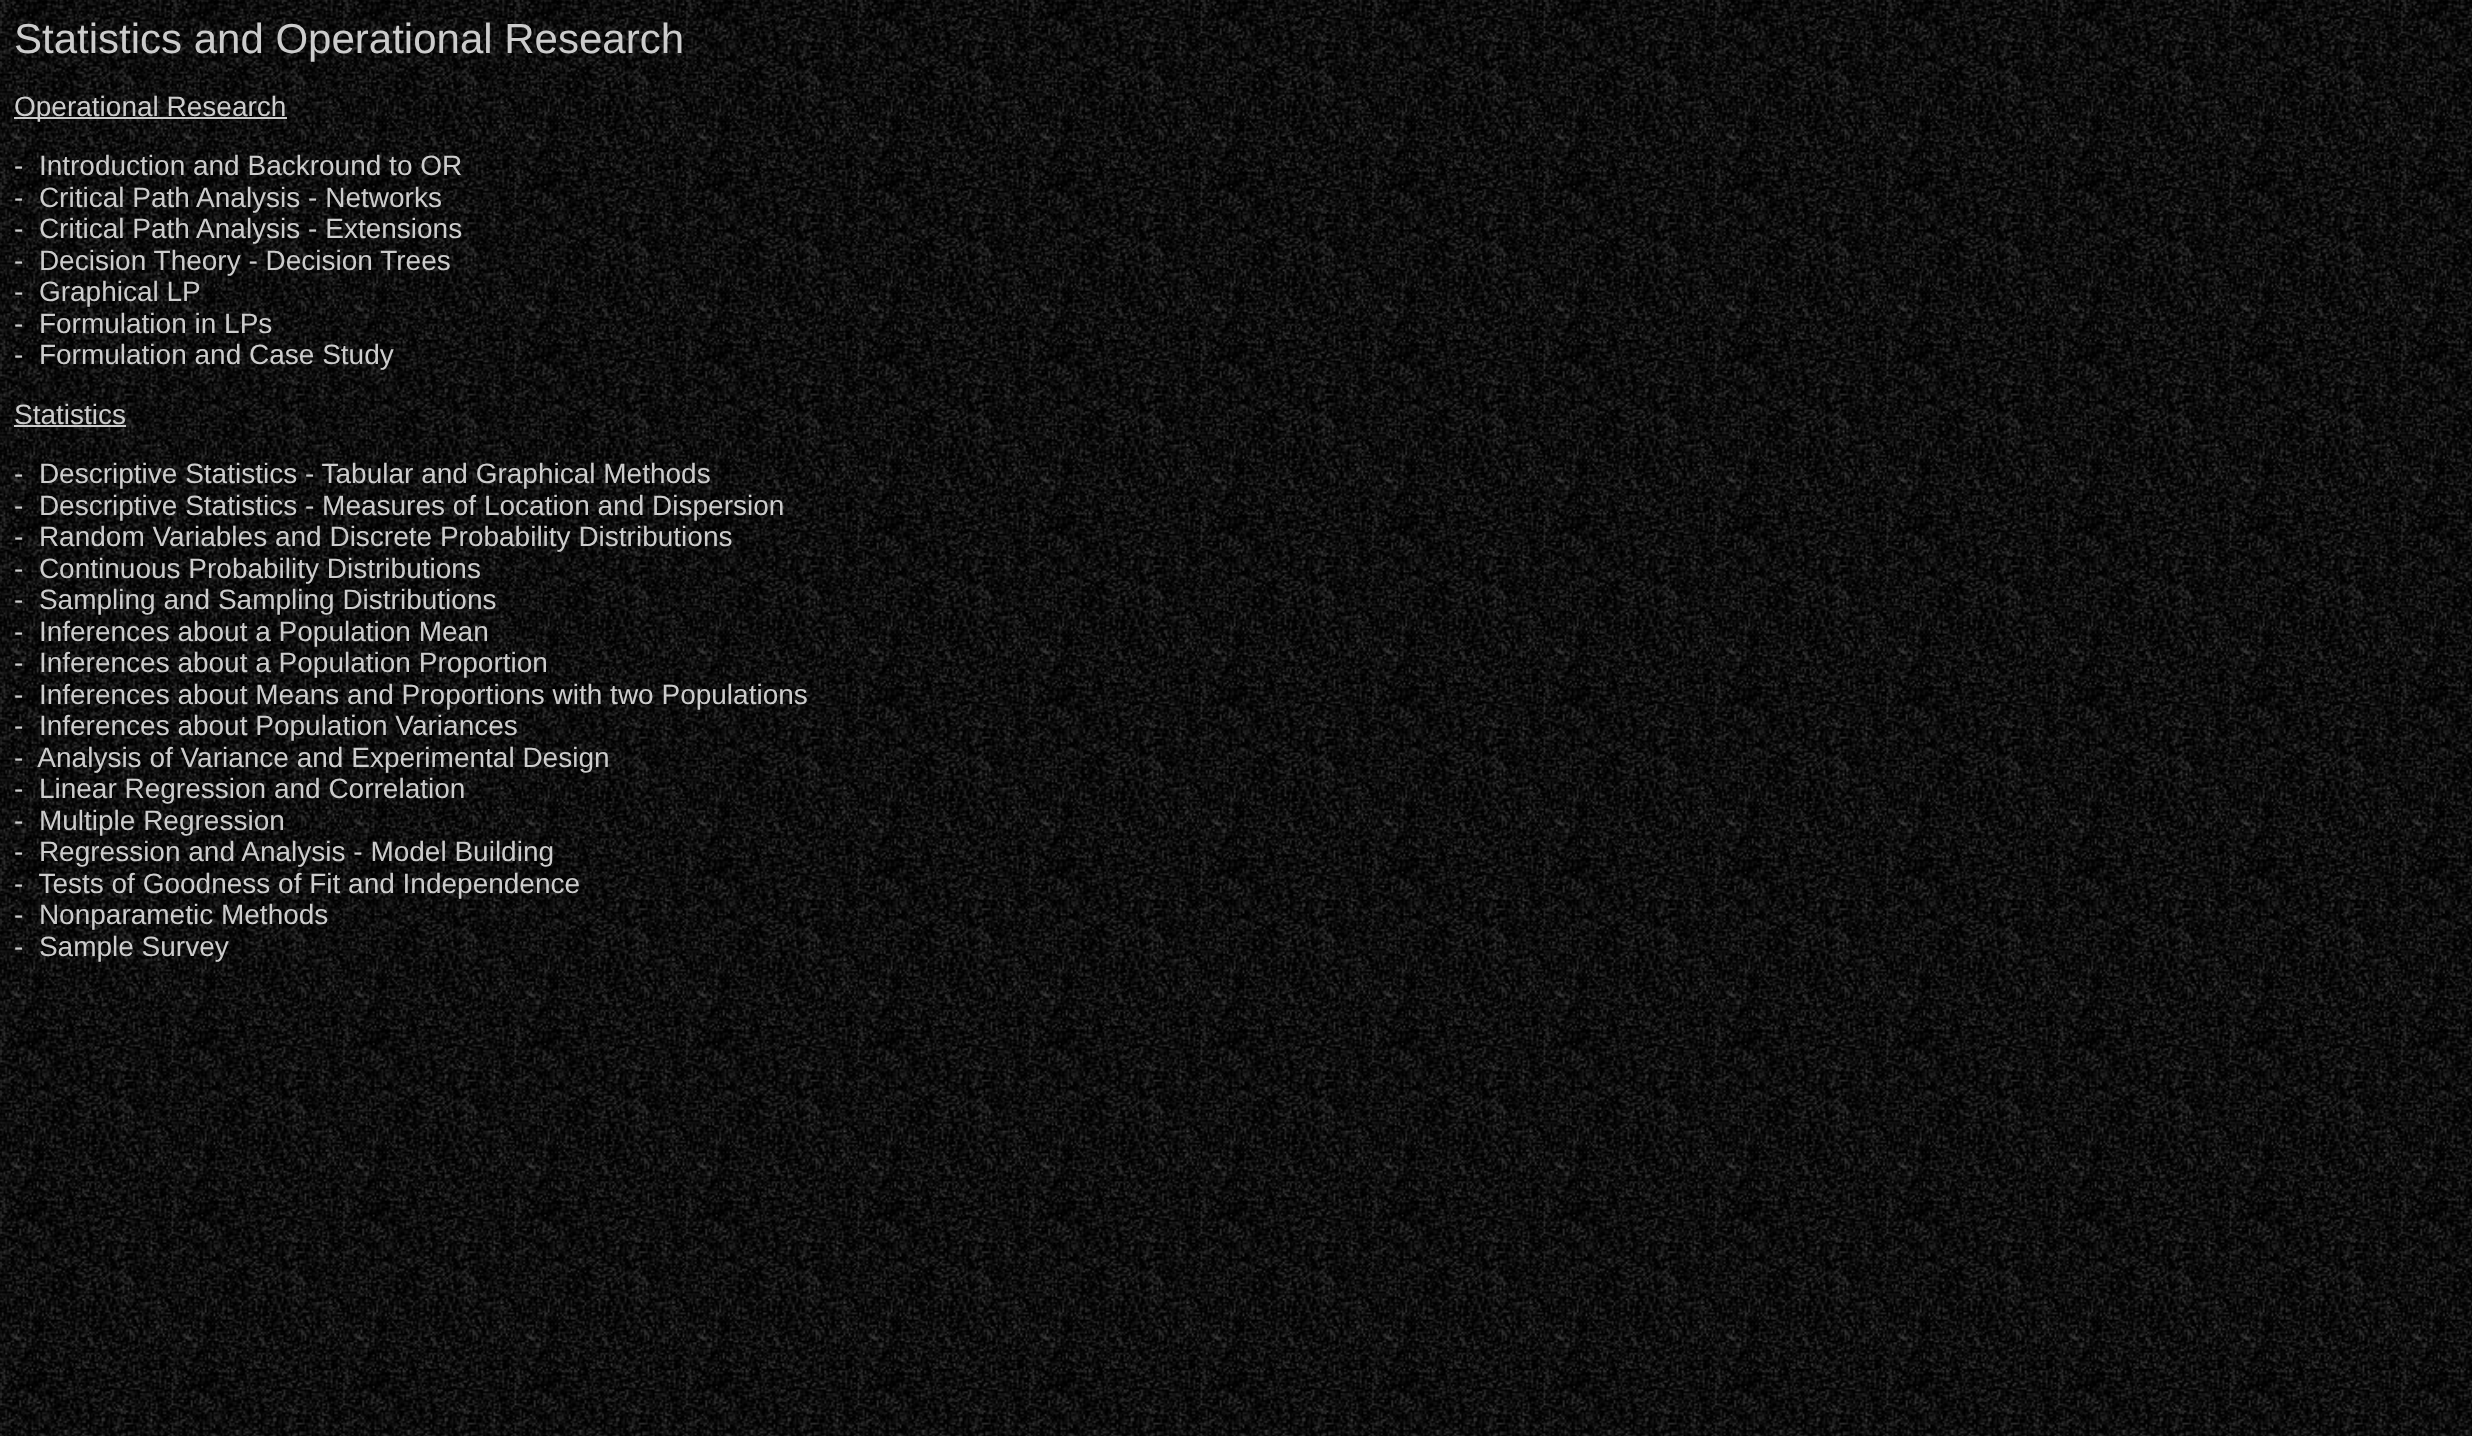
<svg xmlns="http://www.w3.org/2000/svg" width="2472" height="1436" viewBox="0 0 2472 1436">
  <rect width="100%" height="100%" fill="#fff"/>
  <image x="0" y="0" width="2472" height="1436" href="img/1.png"/>
  <path d="M14 117h273v2H14z" fill="#ccc"/>
  <path d="M14 425h112v2H14z" fill="#ccc"/>
  <text x="14" y="53" font-family="Liberation Sans" font-size="42" fill="#ccc">Statistics and Operational Research</text>
  <g font-family="Liberation Sans" font-size="28" fill="#ccc">
    <text x="14" y="116">Operational Research</text>
    <text x="14" y="175" xml:space="preserve">-  Introduction and Backround to OR</text>
    <text x="14" y="207" xml:space="preserve">-  Critical Path Analysis - Networks</text>
    <text x="14" y="238" xml:space="preserve">-  Critical Path Analysis - Extensions</text>
    <text x="14" y="270" xml:space="preserve">-  Decision Theory - Decision Trees</text>
    <text x="14" y="301" xml:space="preserve">-  Graphical LP</text>
    <text x="14" y="333" xml:space="preserve">-  Formulation in LPs</text>
    <text x="14" y="364" xml:space="preserve">-  Formulation and Case Study</text>
    <text x="14" y="424">Statistics</text>
    <text x="14" y="483" xml:space="preserve">-  Descriptive Statistics - Tabular and Graphical Methods</text>
    <text x="14" y="515" xml:space="preserve">-  Descriptive Statistics - Measures of Location and Dispersion</text>
    <text x="14" y="546" xml:space="preserve">-  Random Variables and Discrete Probability Distributions</text>
    <text x="14" y="578" xml:space="preserve">-  Continuous Probability Distributions</text>
    <text x="14" y="609" xml:space="preserve">-  Sampling and Sampling Distributions</text>
    <text x="14" y="641" xml:space="preserve">-  Inferences about a Population Mean</text>
    <text x="14" y="672" xml:space="preserve">-  Inferences about a Population Proportion</text>
    <text x="14" y="704" xml:space="preserve">-  Inferences about Means and Proportions with two Populations</text>
    <text x="14" y="735" xml:space="preserve">-  Inferences about Population Variances</text>
    <text x="14" y="767" xml:space="preserve">-  Analysis of Variance and Experimental Design</text>
    <text x="14" y="798" xml:space="preserve">-  Linear Regression and Correlation</text>
    <text x="14" y="830" xml:space="preserve">-  Multiple Regression</text>
    <text x="14" y="861" xml:space="preserve">-  Regression and Analysis - Model Building</text>
    <text x="14" y="893" xml:space="preserve">-  Tests of Goodness of Fit and Independence</text>
    <text x="14" y="924" xml:space="preserve">-  Nonparametic Methods</text>
    <text x="14" y="956" xml:space="preserve">-  Sample Survey</text>
  </g>
</svg>
